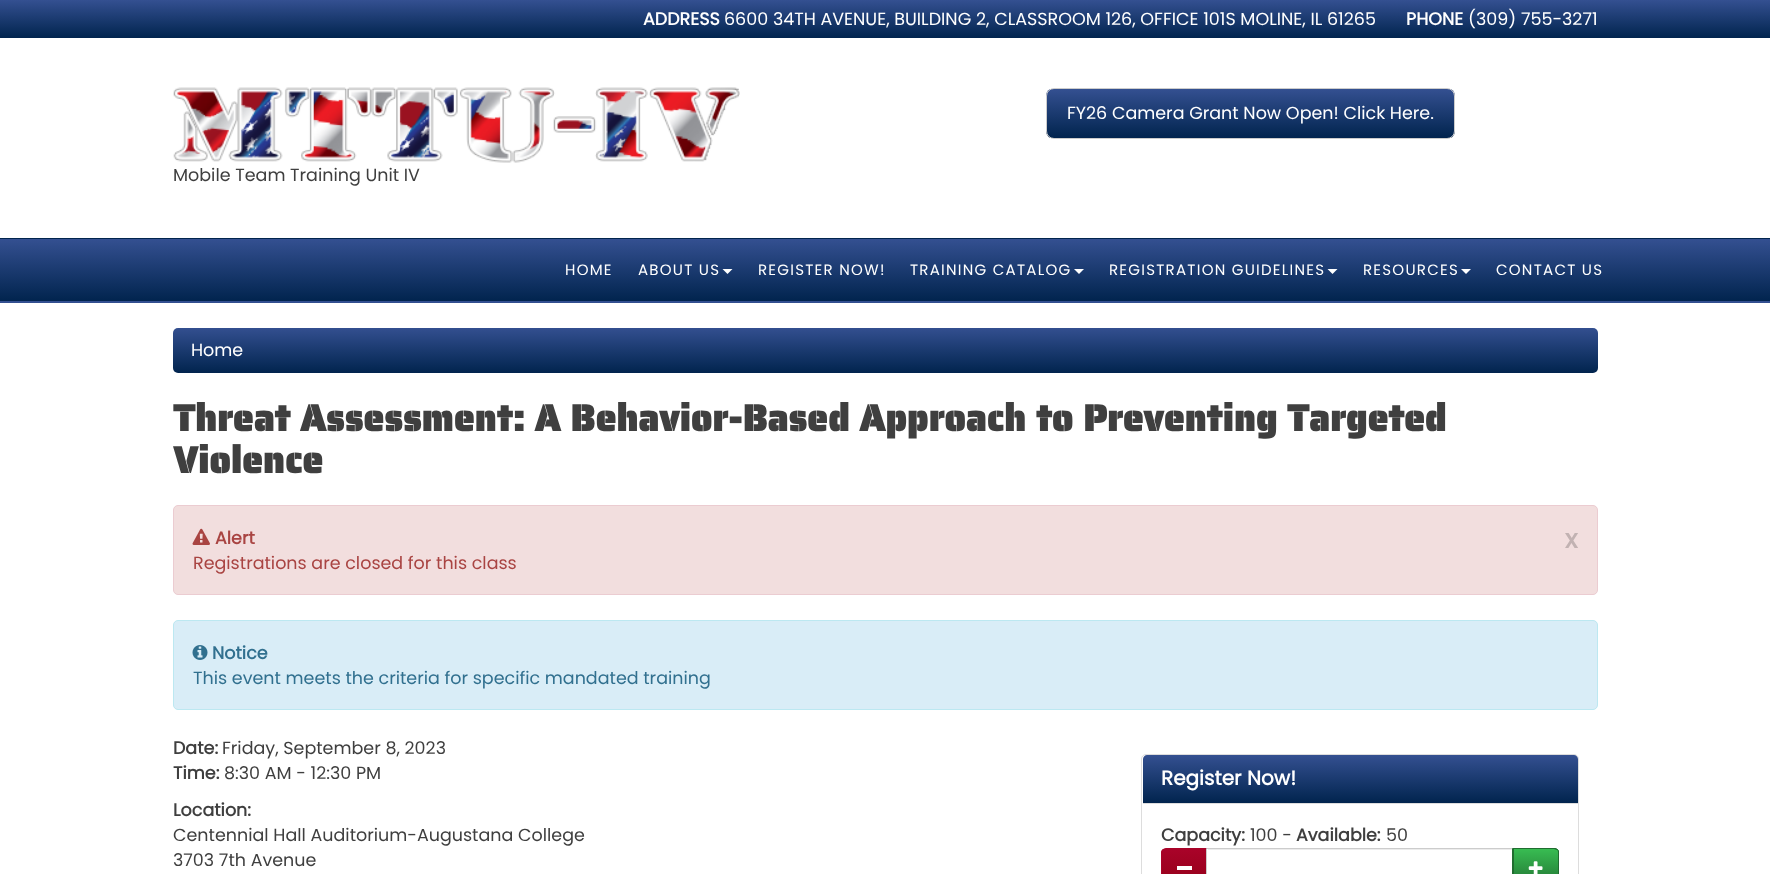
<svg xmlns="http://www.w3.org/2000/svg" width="1770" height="874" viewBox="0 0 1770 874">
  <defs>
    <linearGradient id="g1" gradientUnits="userSpaceOnUse" x1="885" y1="0" x2="885" y2="38"><stop offset="0" stop-color="#345091"/><stop offset="1" stop-color="#01244e"/></linearGradient>
    <clipPath id="clip1"><rect x="1046" y="88" width="409" height="51" rx="8"/></clipPath>
    <linearGradient id="g2" gradientUnits="userSpaceOnUse" x1="1251" y1="89" x2="1251" y2="138"><stop offset="0" stop-color="#345091"/><stop offset="1" stop-color="#01244e"/></linearGradient>
    <linearGradient id="g3" gradientUnits="userSpaceOnUse" x1="885" y1="176" x2="885" y2="239"><stop offset="0" stop-color="#345091"/><stop offset="1" stop-color="#01244e"/></linearGradient>
    <linearGradient id="g4" gradientUnits="userSpaceOnUse" x1="885" y1="239" x2="885" y2="301"><stop offset="0" stop-color="#345091"/><stop offset="1" stop-color="#01244e"/></linearGradient>
    <linearGradient id="g5" gradientUnits="userSpaceOnUse" x1="885" y1="301" x2="885" y2="364"><stop offset="0" stop-color="#345091"/><stop offset="1" stop-color="#01244e"/></linearGradient>
    <linearGradient id="g6" gradientUnits="userSpaceOnUse" x1="885" y1="327" x2="885" y2="373"><stop offset="0" stop-color="#345091"/><stop offset="1" stop-color="#01244e"/></linearGradient>
    <linearGradient id="g7" gradientUnits="userSpaceOnUse" x1="1360" y1="755" x2="1360" y2="803"><stop offset="0" stop-color="#345091"/><stop offset="1" stop-color="#01244e"/></linearGradient>
    <clipPath id="clip2"><path d="M1166 848H1208V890H1166C1163 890 1161 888 1161 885V853C1161 850 1163 848 1166 848Z"/></clipPath>
    <linearGradient id="g8" gradientUnits="userSpaceOnUse" x1="1184" y1="849" x2="1184" y2="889"><stop offset="0" stop-color="#a90329"/><stop offset="1" stop-color="#930018"/></linearGradient>
    <clipPath id="clip3"><path d="M1513 848H1554C1557 848 1559 850 1559 853V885C1559 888 1557 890 1554 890H1513Z"/></clipPath>
    <linearGradient id="g9" gradientUnits="userSpaceOnUse" x1="1536" y1="849" x2="1536" y2="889"><stop offset="0" stop-color="#38bc52"/><stop offset="1" stop-color="#206d30"/></linearGradient>
  </defs>
  <rect width="100%" height="100%" fill="#fff"/>
  <path d="M0 0h1770v38H0z" fill="url(#g1)"/>
  <g clip-path="url(#clip1)">
    <path d="M1046 89h409v49H1046z" fill="url(#g2)"/>
  </g>
  <rect x="1046.5" y="88.5" width="408" height="50" rx="7.5" fill="none" stroke="#ccc"/>
  <image x="173" y="87" width="567" height="76" href="img/1.png"/>
  <path d="M0 238h1770v1H0z" fill="url(#g3)"/>
  <path d="M0 239h1770v62H0z" fill="url(#g4)"/>
  <path d="M0 301h1770v2H0z" fill="url(#g5)"/>
  <path d="M722.5 269H732.5L727.5 274Z" fill="#fff"/>
  <path d="M1074 269H1084L1079 274Z" fill="#fff"/>
  <path d="M1327.5 269H1337.5L1332.5 274Z" fill="#fff"/>
  <path d="M1461 269H1471L1466 274Z" fill="#fff"/>
  <rect x="173" y="328" width="1425" height="45" rx="5" fill="url(#g6)"/>
  <rect x="173.5" y="505.5" width="1424" height="89" rx="4.5" fill="#f2dede" stroke="#ebccd1"/>
  <image x="192" y="528" width="18" height="17" href="img/2.png"/>
  <rect x="173.5" y="620.5" width="1424" height="89" rx="4.5" fill="#d9edf7" stroke="#bce8f1"/>
  <image x="192" y="645" width="16" height="15" href="img/3.png"/>
  <rect x="1141.5" y="754.5" width="437" height="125" rx="4.5" fill="none" stroke="#ddd"/>
  <path d="M1147 755H1574C1576 755 1578 757 1578 759V803H1143V759C1143 757 1145 755 1147 755Z" fill="url(#g7)"/>
  <path d="M1143 803h435v1H1143z" fill="#ddd"/>
  <g clip-path="url(#clip2)">
    <path d="M1161 849h45v25H1161z" fill="url(#g8)"/>
  </g>
  <path d="M1166 848.5H1207.5V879.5H1166C1163.5 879.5 1161.5 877.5 1161.5 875V853C1161.5 850.5 1163.5 848.5 1166 848.5Z" fill="none" stroke="#a90329"/>
  <path d="M1177 866h15v4H1177z" fill="#fff"/>
  <path d="M1207 849h1v25H1207z" fill="#fff"/>
  <path d="M1208 849h305v1H1208z" fill="#ececec"/>
  <path d="M1206.5 848.5h307v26H1206.5z" fill="none" stroke="#ccc"/>
  <path d="M1513 848H1554C1557 848 1559 850 1559 853V874C1559 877 1557 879 1554 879H1513Z" fill="#216e30"/>
  <g clip-path="url(#clip3)">
    <path d="M1514 849h45v25H1514z" fill="url(#g9)"/>
  </g>
  <path d="M1514 849H1554L1557 850V849C1556 848 1555 848 1554 848H1513Z" fill="#206d30"/>
  <path d="M1557.5 849L1559 851V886.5L1557.5 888.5L1556.5 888C1557.5 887 1558 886 1558 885V852C1558 851 1557.5 850 1556.5 849.5ZM1514 849L1512 848V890L1514 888Z" fill="#206d30"/>
  <image x="1528" y="861" width="15" height="13" href="img/4.png"/>
  <text x="643" y="25" font-family="Poppins" font-size="17.5" font-weight="bold" fill="#fff">ADDRESS</text>
  <text x="724" y="25" font-family="Poppins" font-size="17.5" fill="#fff">6600 34TH AVENUE, BUILDING 2, CLASSROOM 126, OFFICE 101S MOLINE, IL 61265</text>
  <text x="1406" y="25" font-family="Poppins" font-size="17.5" font-weight="bold" fill="#fff">PHONE</text>
  <g font-family="Poppins" font-size="17.5" fill="#fff">
    <text x="1468" y="25">(309) 755-3271</text>
    <text x="1067" y="119">FY26 Camera Grant Now Open! Click Here.</text>
  </g>
  <text x="173" y="181" font-family="Poppins" font-size="17.5" fill="#3f3f3f">Mobile Team Training Unit IV</text>
  <g font-family="Poppins" font-size="15" letter-spacing="1.25" fill="#fff">
    <text x="565" y="275">HOME</text>
    <text x="638" y="275">ABOUT US</text>
    <text x="758" y="275">REGISTER NOW!</text>
    <text x="910" y="275">TRAINING CATALOG</text>
    <text x="1109" y="275">REGISTRATION GUIDELINES</text>
    <text x="1363" y="275">RESOURCES</text>
    <text x="1496" y="275">CONTACT US</text>
  </g>
  <text x="191" y="356" font-family="Poppins" font-size="17.5" fill="#fff">Home</text>
  <g font-family="Saira Stencil One" font-size="37.5" font-weight="bold" fill="#3f3f3f">
    <text x="173" y="431">Threat Assessment: A Behavior-Based Approach to Preventing Targeted</text>
    <text x="173" y="473">Violence</text>
  </g>
  <text x="215" y="544" font-family="Poppins" font-size="17.5" font-weight="bold" fill="#a94442">Alert</text>
  <text x="1565" y="548" font-family="Poppins" font-size="26" font-weight="bold" fill="#c2b2b2">x</text>
  <text x="193" y="569" font-family="Poppins" font-size="17.5" fill="#a94442">Registrations are closed for this class</text>
  <text x="212" y="659" font-family="Poppins" font-size="17.5" font-weight="bold" fill="#31708f">Notice</text>
  <text x="193" y="684" font-family="Poppins" font-size="17.5" fill="#31708f">This event meets the criteria for specific mandated training</text>
  <text x="173" y="754" font-family="Poppins" font-size="17.5" font-weight="bold" fill="#3f3f3f">Date:</text>
  <text x="222" y="754" font-family="Poppins" font-size="17.5" fill="#3f3f3f">Friday, September 8, 2023</text>
  <text x="173" y="779" font-family="Poppins" font-size="17.5" font-weight="bold" fill="#3f3f3f">Time:</text>
  <text x="224" y="779" font-family="Poppins" font-size="17.5" fill="#3f3f3f">8:30 AM - 12:30 PM</text>
  <text x="173" y="816" font-family="Poppins" font-size="17.5" font-weight="bold" fill="#3f3f3f">Location:</text>
  <g font-family="Poppins" font-size="17.5" fill="#3f3f3f">
    <text x="173" y="841">Centennial Hall Auditorium-Augustana College</text>
    <text x="173" y="866">3703 7th Avenue</text>
  </g>
  <text x="1161" y="785" font-family="Poppins" font-size="20" font-weight="bold" fill="#fff">Register Now!</text>
  <text x="1161" y="841" font-family="Poppins" font-size="17.5" font-weight="bold" fill="#3f3f3f">Capacity:</text>
  <text x="1250" y="841" font-family="Poppins" font-size="17.5" fill="#3f3f3f">100 -</text>
  <text x="1296" y="841" font-family="Poppins" font-size="17.5" font-weight="bold" fill="#3f3f3f">Available:</text>
  <text x="1386" y="841" font-family="Poppins" font-size="17.5" fill="#3f3f3f">50</text>
</svg>
